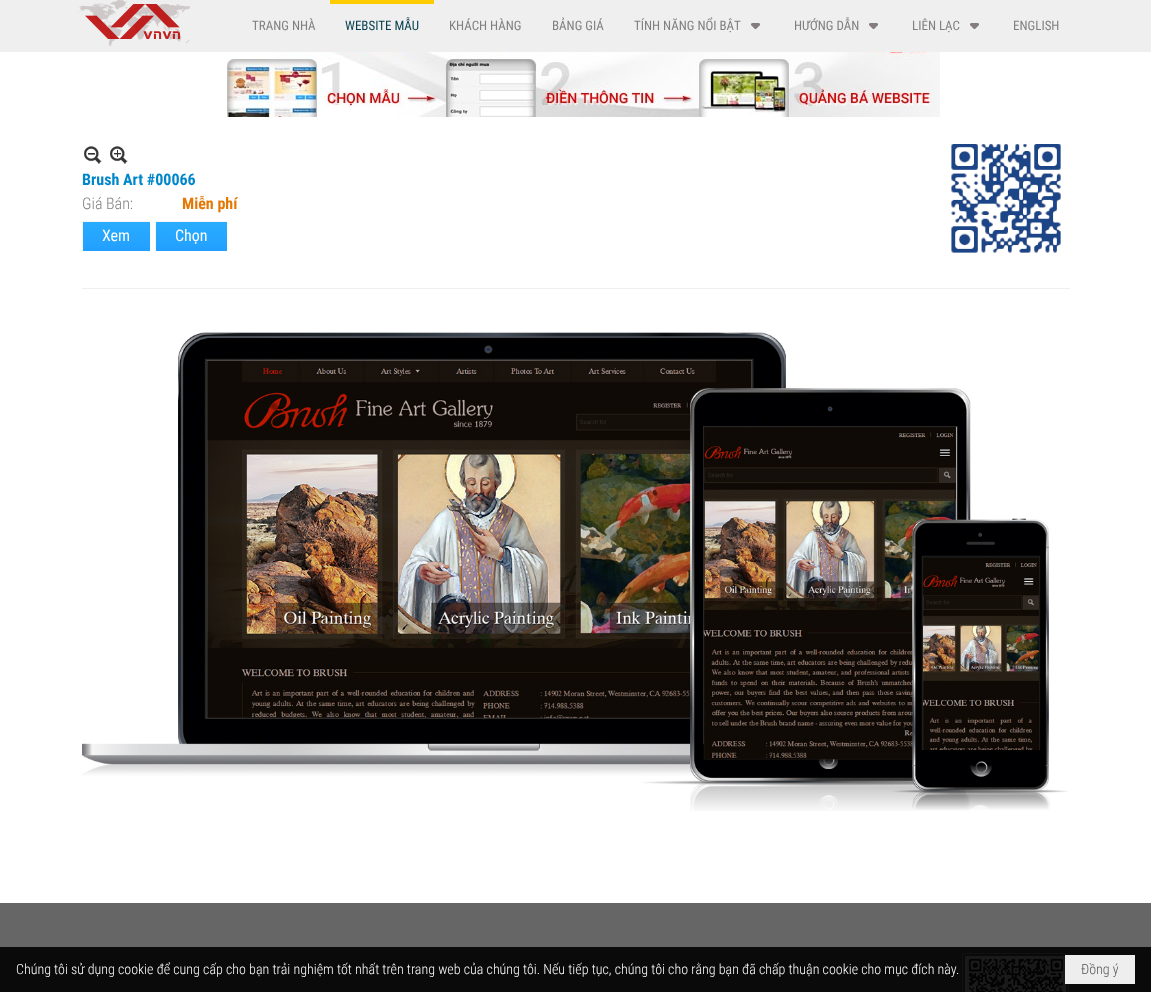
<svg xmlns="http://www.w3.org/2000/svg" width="1151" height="992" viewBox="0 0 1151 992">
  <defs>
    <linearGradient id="g1" gradientUnits="userSpaceOnUse" x1="116" y1="221" x2="116" y2="251"><stop offset="0" stop-color="#29adff"/><stop offset="1" stop-color="#229fff"/><stop offset="1" stop-color="#7db9e8"/></linearGradient>
    <clipPath id="clip1"><path d="M82 221h68v30H82z"/></clipPath>
    <linearGradient id="g2" gradientUnits="userSpaceOnUse" x1="191" y1="221" x2="191" y2="251"><stop offset="0" stop-color="#29adff"/><stop offset="1" stop-color="#229fff"/><stop offset="1" stop-color="#7db9e8"/></linearGradient>
    <clipPath id="clip2"><path d="M155 221h72v30H155z"/></clipPath>
  </defs>
  <rect width="100%" height="100%" fill="#fff"/>
  <path d="M0 0h1151v52H0z" fill="#efefef"/>
  <image x="77" y="0" width="113" height="46" href="img/1.png"/>
  <path d="M330 0h104v4H330z" fill="#fc0"/>
  <image x="751" y="23" width="9" height="6" href="img/2.png"/>
  <image x="869" y="23" width="9" height="6" href="img/2.png"/>
  <image x="970" y="23" width="9" height="6" href="img/2.png"/>
  <image x="226" y="52" width="714" height="65" href="img/3.png"/>
  <path d="M82 288h988v1H82z" fill="#eee"/>
  <image x="84" y="146" width="18" height="18" href="img/4.png"/>
  <image x="110" y="146" width="18" height="18" href="img/5.png"/>
  <image x="951" y="144" width="110" height="109" href="img/6.png"/>
  <path d="M83 222h67v29H83z" fill="url(#g1)"/>
  <g clip-path="url(#clip1)">
    <path d="M-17 122H249V350H-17ZM83 222H151V252H83Z" fill="#f5f5f5" fill-rule="evenodd"/>
  </g>
  <path d="M156 222h71v29H156z" fill="url(#g2)"/>
  <g clip-path="url(#clip2)">
    <path d="M56 122H326V350H56ZM156 222H228V252H156Z" fill="#f5f5f5" fill-rule="evenodd"/>
  </g>
  <image x="82" y="332" width="986" height="479" href="img/7.png"/>
  <path d="M0 903h1151v44H0z" fill="#666"/>
  <path d="M0 947h1151v45H0z" fill="#0a0a0a"/>
  <path d="M962.5 953.5h106v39H962.5z" fill="none" stroke="#111"/>
  <image x="965" y="956" width="101" height="36" href="img/8.png"/>
  <path d="M1065 955h70v29H1065z" fill="#eee"/>
  <text x="252" y="30" font-family="Roboto Condensed" font-size="13" fill="#808080">TRANG NHÀ</text>
  <text x="345" y="30" font-family="Roboto Condensed" font-size="13" fill="#063e4d">WEBSITE MẪU</text>
  <g font-family="Roboto Condensed" font-size="13" fill="#808080">
    <text x="449" y="30">KHÁCH HÀNG</text>
    <text x="552" y="30">BẢNG GIÁ</text>
    <text x="634" y="30">TÍNH NĂNG NỔI BẬT</text>
    <text x="794" y="30">HƯỚNG DẪN</text>
    <text x="912" y="30">LIÊN LẠC</text>
    <text x="1013" y="30">ENGLISH</text>
  </g>
  <text x="82" y="185" font-family="Roboto Condensed" font-size="16" font-weight="bold" fill="#0086cb">Brush Art #00066</text>
  <text x="82" y="209" font-family="Roboto Condensed" font-size="16" font-weight="300" fill="#808080">Giá Bán:</text>
  <text x="182" y="209" font-family="Roboto Condensed" font-size="16" font-weight="bold" fill="#e47806">Miễn phí</text>
  <g font-family="Roboto Condensed" font-size="16" fill="#fff">
    <text x="102" y="241">Xem</text>
    <text x="175" y="241">Chọn</text>
  </g>
  <text x="16" y="974" font-family="Roboto Condensed" font-size="14" font-weight="300" fill="#fff">Chúng tôi sử dụng cookie để cung cấp cho bạn trải nghiệm tốt nhất trên trang web của chúng tôi. Nếu tiếp tục, chúng tôi cho rằng bạn đã chấp thuận cookie cho mục đích này.</text>
  <text x="1081" y="974" font-family="Roboto Condensed" font-size="14" font-weight="300" fill="#555">Đồng ý</text>
</svg>
